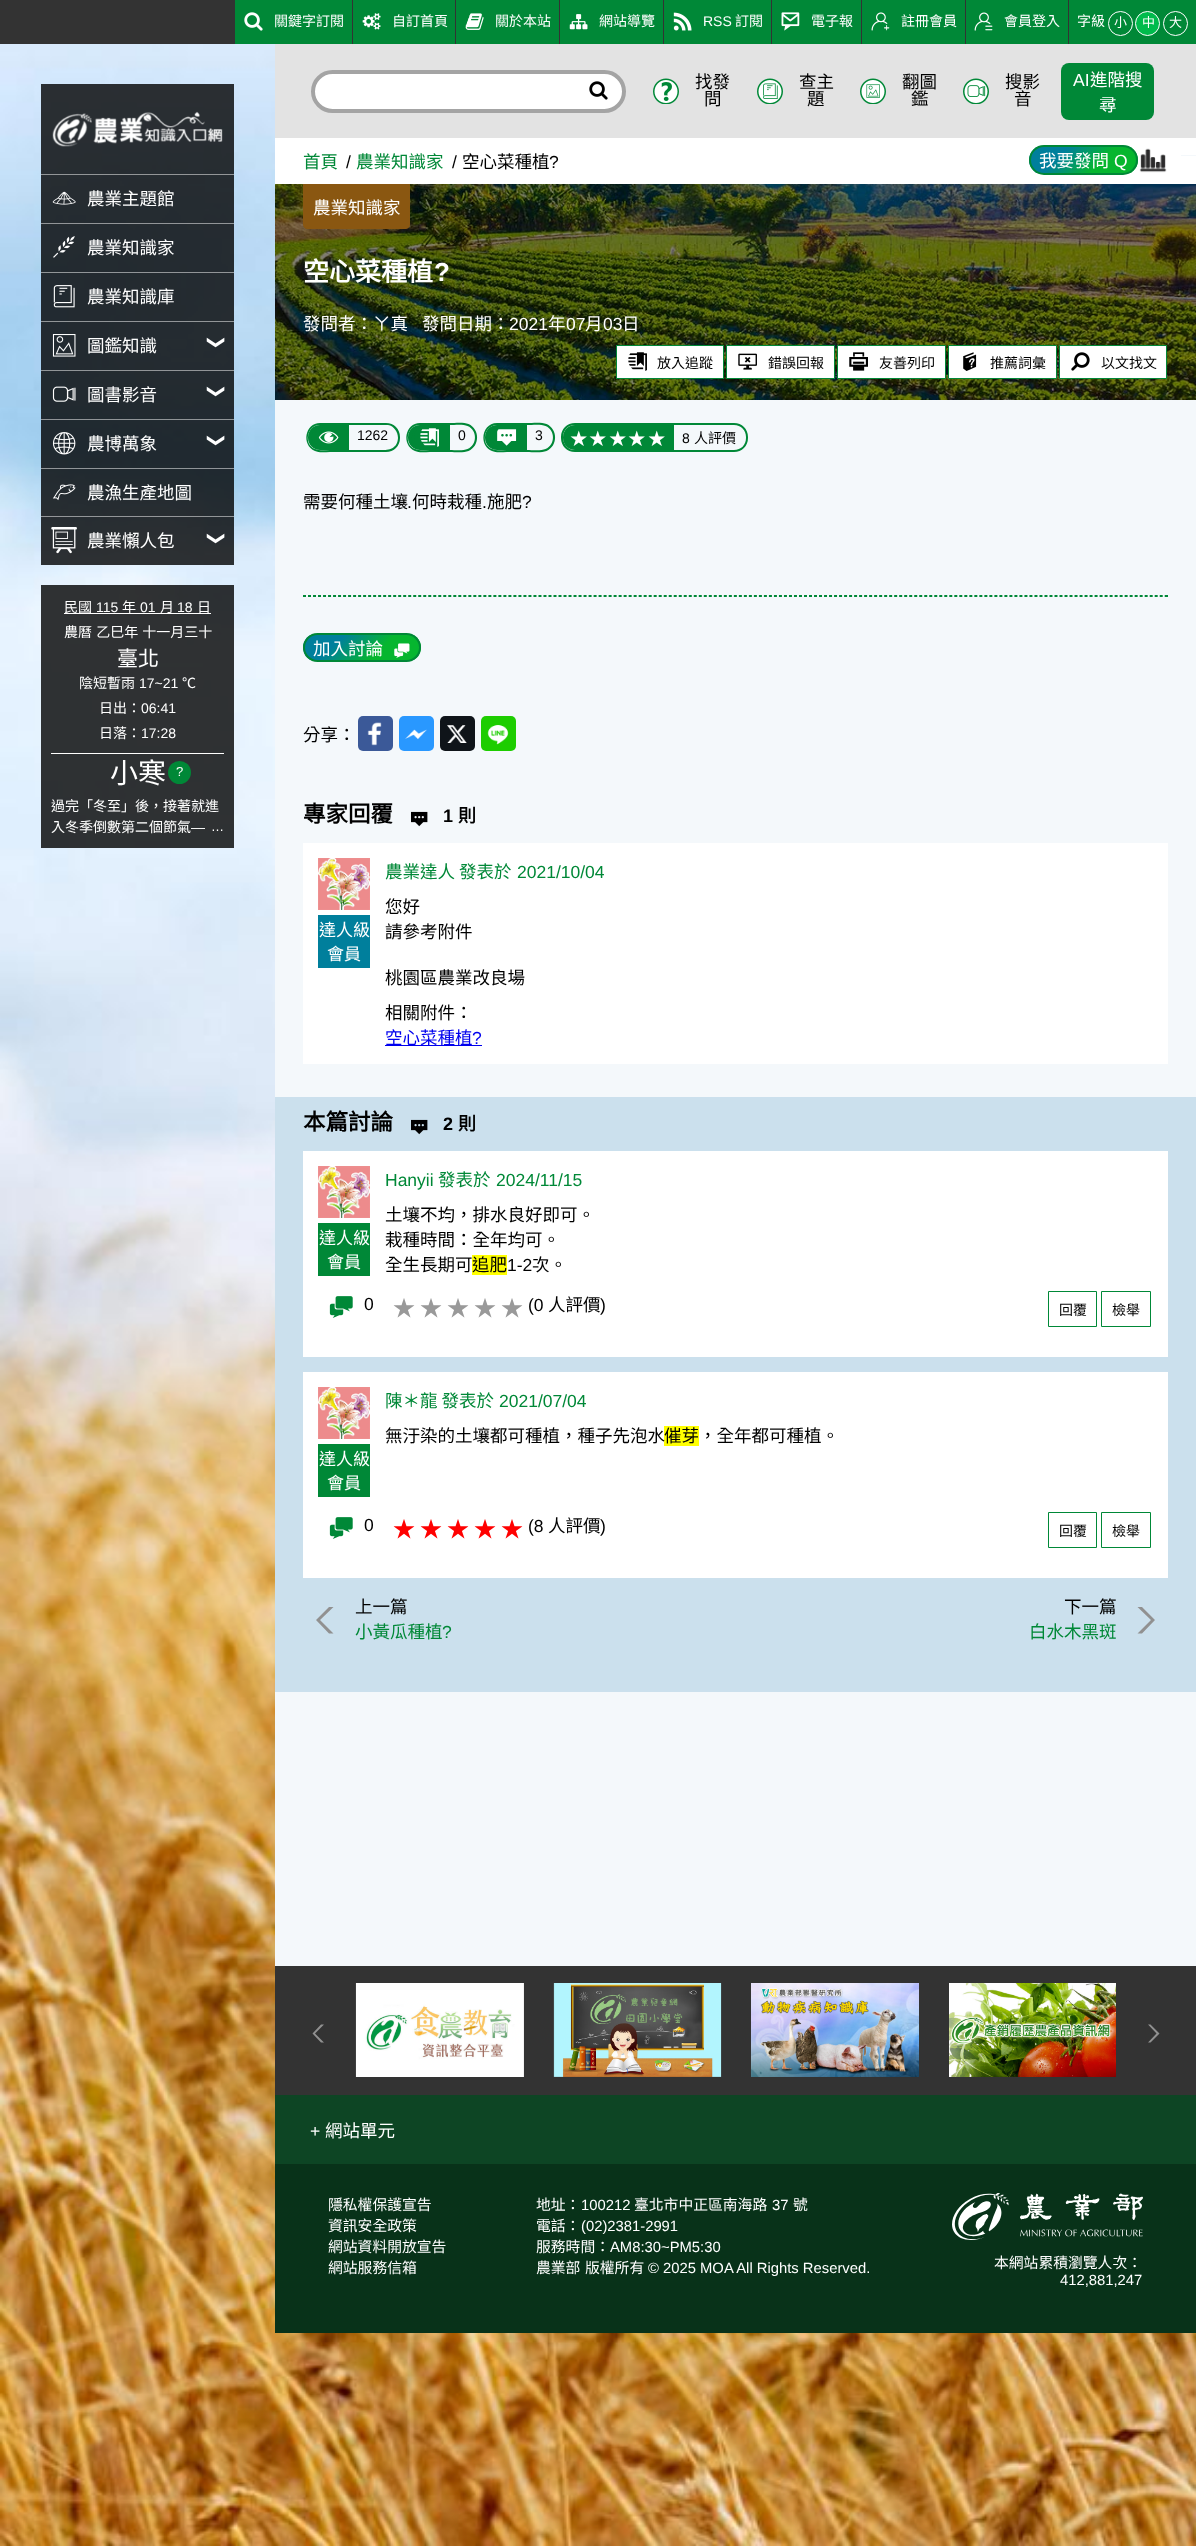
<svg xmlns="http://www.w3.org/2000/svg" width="1196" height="2546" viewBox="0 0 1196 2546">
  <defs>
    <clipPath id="clip1"><rect x="1029" y="145" width="109" height="30" rx="15"/></clipPath>
    <linearGradient id="g1" gradientUnits="userSpaceOnUse" x1="1025" y1="101" x2="1143" y2="219"><stop offset="0.38" stop-color="#007f9c"/><stop offset="0.58" stop-color="#06b62f"/></linearGradient>
    <clipPath id="clip2"><rect x="303" y="633" width="118" height="29" rx="14.5"/></clipPath>
    <linearGradient id="g2" gradientUnits="userSpaceOnUse" x1="299" y1="584" x2="425" y2="711"><stop offset="0.38" stop-color="#007f9c"/><stop offset="0.58" stop-color="#06b62f"/></linearGradient>
  </defs>
  <rect width="100%" height="100%" fill="#fff"/>
  <image x="0" y="44" width="1196" height="2502" href="img/1.png"/>
  <path d="M0 0h1069v44H0z" fill="#333"/>
  <path d="M235 0h117v44H235z" fill="#008837"/>
  <image x="244" y="12" width="19" height="19" href="img/2.png"/>
  <path d="M353 0h102v44H353z" fill="#008837"/>
  <image x="362" y="13" width="19" height="17" href="img/3.png"/>
  <path d="M456 0h103v44H456z" fill="#008837"/>
  <image x="465" y="13" width="19" height="17" href="img/4.png"/>
  <path d="M560 0h103v44H560z" fill="#008837"/>
  <image x="569" y="14" width="19" height="16" href="img/5.png"/>
  <path d="M664 0h107v44H664z" fill="#008837"/>
  <image x="673" y="12" width="19" height="19" href="img/6.png"/>
  <path d="M772 0h89v44H772z" fill="#008837"/>
  <image x="781" y="12" width="19" height="19" href="img/7.png"/>
  <path d="M862 0h103v44H862z" fill="#008837"/>
  <image x="871" y="12" width="19" height="19" href="img/8.png"/>
  <path d="M966 0h102v44H966z" fill="#008837"/>
  <image x="974" y="12" width="19" height="19" href="img/9.png"/>
  <path d="M1069 0h127v44H1069z" fill="#008837"/>
  <circle cx="1120.5" cy="23.5" r="12" fill="none" stroke="#fff"/>
  <circle cx="1147.5" cy="23.5" r="12" fill="#00bb4c" stroke="#fff"/>
  <circle cx="1175.5" cy="23.5" r="12" fill="none" stroke="#fff"/>
  <path d="M41 84h193v481H41z" fill="#000000cc"/>
  <image x="52" y="111" width="171" height="36" href="img/10.png"/>
  <path d="M41 174h193v1H41z" fill="#939698"/>
  <image x="52" y="191" width="24" height="14" href="img/11.png"/>
  <path d="M41 223h193v1H41z" fill="#929598"/>
  <image x="53" y="236" width="22" height="22" href="img/12.png"/>
  <path d="M41 272h193v1H41z" fill="#ffffff80"/>
  <image x="53" y="285" width="22" height="23" href="img/13.png"/>
  <path d="M41 321h193v1H41z" fill="#ffffff80"/>
  <image x="52" y="334" width="24" height="23" href="img/14.png"/>
  <path d="M41 370h193v1H41z" fill="#ffffff80"/>
  <image x="52" y="386" width="24" height="16" href="img/15.png"/>
  <path d="M41 419h193v1H41z" fill="#909497"/>
  <image x="52" y="432" width="24" height="23" href="img/16.png"/>
  <path d="M41 468h193v1H41z" fill="#ffffff80"/>
  <image x="52" y="484" width="24" height="17" href="img/17.png"/>
  <path d="M41 516h193v1H41z" fill="#ffffff80"/>
  <image x="51" y="527" width="26" height="27" href="img/18.png"/>
  <path d="M41 585h193v263H41z" fill="#000000cc"/>
  <path d="M64 613h147v1H64z" fill="#fff"/>
  <path d="M51 753h173v1H51z" fill="#fff"/>
  <circle cx="179.5" cy="772.5" r="11.5" fill="#008837"/>
  <path d="M275 400h921v1566H275z" fill="#f4f8fb"/>
  <path d="M275 44h921v94H275z" fill="#e3e3e3"/>
  <rect x="313" y="72" width="311" height="39" rx="19.5" fill="#fff" stroke="#a4a4a4" stroke-width="4"/>
  <image x="589" y="81" width="19" height="19" href="img/19.png"/>
  <image x="653" y="78" width="26" height="26" href="img/20.png"/>
  <image x="757" y="78" width="26" height="26" href="img/21.png"/>
  <image x="860" y="78" width="26" height="26" href="img/22.png"/>
  <image x="963" y="78" width="26" height="26" href="img/23.png"/>
  <rect x="1061" y="63" width="93" height="57" rx="8" fill="#008837"/>
  <path d="M275 138h921v46H275z" fill="#fff"/>
  <g clip-path="url(#clip1)">
    <path d="M1029 147h109v26H1029z" fill="url(#g1)"/>
  </g>
  <rect x="1030" y="146" width="107" height="28" rx="14" fill="none" stroke="#008837" stroke-width="2"/>
  <image x="1139" y="148" width="28" height="25" href="img/24.png"/>
  <path d="M1181 155h15v1H1181z" fill="#f4f8fb"/>
  <image x="275" y="184" width="921" height="216" href="img/25.png"/>
  <path d="M303 184H410V224C410 227 408 229 405 229H308C305 229 303 227 303 224Z" fill="#8a5711"/>
  <path d="M616.5 345.5h107v33H616.5z" fill="#fff" stroke="#008837"/>
  <image x="628" y="352" width="19" height="19" href="img/26.png"/>
  <path d="M726.5 345.5h108v33H726.5z" fill="#fff" stroke="#008837"/>
  <image x="738" y="353" width="19" height="17" href="img/27.png"/>
  <path d="M837.5 345.5h108v33H837.5z" fill="#fff" stroke="#008837"/>
  <image x="849" y="352" width="19" height="19" href="img/28.png"/>
  <path d="M948.5 345.5h108v33H948.5z" fill="#fff" stroke="#008837"/>
  <image x="963" y="352" width="14" height="19" href="img/29.png"/>
  <path d="M1059.5 345.5h107v33H1059.5z" fill="#fff" stroke="#008837"/>
  <image x="1071" y="352" width="19" height="19" href="img/30.png"/>
  <path d="M320 425H349V450H320C313.5 450 308 444.5 308 438V437C308 430.5 313.5 425 320 425Z" fill="#008837"/>
  <path d="M320 423H349V452H330C325 452 319 453 315 451C301 445 305 423 320 423ZM320 425H349V450H330C325 450 320 451 315 449C303 444 307 425 320 425Z" fill="#008837" fill-rule="evenodd"/>
  <path d="M324.5 425H339V450C334 450 324 451 319.5 449C307 444 311 425 324.5 425ZM324.5 427H339V448C334.5 448 324 449 320.5 447C310 443 313 427 324.5 427Z" fill="#008837" fill-rule="evenodd"/>
  <image x="318" y="431" width="21" height="13" href="img/31.png"/>
  <path d="M349 423H386C394 423 400 429 400 437V438C400 446 394 452 386 452H349ZM349 425H388C394 426 398 432 398 438C397 452 384 450 374 450H349Z" fill="#008837" fill-rule="evenodd"/>
  <path d="M420 425H450V450H420C413.5 450 408 444.5 408 438V437C408 430.5 413.5 425 420 425Z" fill="#008837"/>
  <path d="M420 423H450V452H430C425 452 419 453 415 451C401 445 405 423 420 423ZM420 425H450V450H430C425 450 420 451 415 449C403 444 407 425 420 425Z" fill="#008837" fill-rule="evenodd"/>
  <path d="M424.5 425H440V450C435 450 424 451 419.5 449C407 444 411 425 424.5 425ZM424.5 427H440V448H424.5C418.5 448 414 443.5 414 437.5C414 431.5 418.5 427 424.5 427Z" fill="#008837" fill-rule="evenodd"/>
  <image x="420" y="428" width="19" height="19" href="img/32.png"/>
  <path d="M450 423C455 423 464 422 468.5 424C480 429 480 446 468.5 451C464 453 455 452 450 452ZM450 425C454.5 425 463.5 424 467.5 426C477.5 430 477.5 445 467.5 449C463.5 451 454.5 450 450 450Z" fill="#008837" fill-rule="evenodd"/>
  <path d="M497 425H527V450H497C490.5 450 485 444.5 485 438V437C485 430.5 490.5 425 497 425Z" fill="#008837"/>
  <path d="M497 423H527V452H507C502 452 496 453 492 451C478 445 482 423 497 423ZM497 425H527V450H507C502 450 497 451 492 449C480 444 484 425 497 425Z" fill="#008837" fill-rule="evenodd"/>
  <path d="M502.5 425H517V450C512 450 502 451 497.5 449C485 444 489 425 502.5 425ZM502.5 427H517V448C512.5 448 502 449 498.5 447C488 443 491 427 502.5 427Z" fill="#008837" fill-rule="evenodd"/>
  <image x="497" y="429" width="20" height="17" href="img/33.png"/>
  <path d="M527 423C532.5 423 542 422 546.5 424C558 429 558 446 546.5 451C542 453 532.5 452 527 452ZM527 425C532 425 541.5 424 545.5 426C555.5 430 555.5 445 545.5 449C541.5 451 532 450 527 450Z" fill="#008837" fill-rule="evenodd"/>
  <path d="M575 425H674V450H575C568.5 450 563 444.5 563 438V437C563 430.5 568.5 425 575 425Z" fill="#008837"/>
  <path d="M575 423H674V452H575C567 452 561 446 561 438V437C561 429 567 423 575 423ZM575 425H674V450H573C559 447 560 425 575 425Z" fill="#008837" fill-rule="evenodd"/>
  <path d="M674 423H734C742 423 748 429 748 437V438C748 446 742 452 734 452H674ZM674 425H734C741 425 746 430 746 437V438C746 445 741 450 734 450H674Z" fill="#008837" fill-rule="evenodd"/>
  <path d="M303 595.5H1168" fill="none" stroke="#008837" stroke-dasharray="3 2.01"/>
  <path d="M1167 595h1v2H1167z" fill="#008837"/>
  <path d="M303 596.5H1168" fill="none" stroke="#008837" stroke-dasharray="3 2.01"/>
  <g clip-path="url(#clip2)">
    <path d="M303 635h118v25H303z" fill="url(#g2)"/>
  </g>
  <rect x="304" y="634" width="116" height="27" rx="13.5" fill="none" stroke="#008837" stroke-width="2"/>
  <image x="394" y="643" width="16" height="15" href="img/34.png"/>
  <rect x="358" y="716" width="35" height="35" rx="5" fill="#3b5998"/>
  <image x="367" y="722" width="15" height="24" href="img/35.png"/>
  <rect x="399" y="716" width="35" height="35" rx="5" fill="#2998ff"/>
  <image x="405" y="729" width="22" height="11" href="img/36.png"/>
  <rect x="440" y="716" width="35" height="35" rx="5" fill="#0f1419"/>
  <image x="447" y="725" width="20" height="18" href="img/37.png"/>
  <rect x="481" y="716" width="35" height="35" rx="5" fill="#1dcd00"/>
  <image x="487" y="725" width="22" height="20" href="img/38.png"/>
  <image x="411" y="811" width="17" height="16" href="img/39.png"/>
  <path d="M303 843h865v221H303z" fill="#fff"/>
  <image x="318" y="858" width="52" height="52" href="img/40.png"/>
  <path d="M318 915h52v53H318z" fill="#007f9c"/>
  <path d="M385 1045h97v1H385z" fill="#00e"/>
  <path d="M275 1097h921v595H275z" fill="#cbe0ed"/>
  <image x="411" y="1119" width="17" height="16" href="img/41.png"/>
  <path d="M303 1151h865v206H303z" fill="#fff"/>
  <image x="318" y="1166" width="52" height="52" href="img/42.png"/>
  <path d="M318 1223h52v53H318z" fill="#008837"/>
  <path d="M472 1255h35v20H472z" fill="#ff0"/>
  <image x="329" y="1296" width="24" height="22" href="img/43.png"/>
  <path d="M1048.5 1291.5h48v35H1048.5z" fill="none" stroke="#008837"/>
  <path d="M1101.5 1291.5h49v35H1101.5z" fill="none" stroke="#008837"/>
  <path d="M303 1372h865v206H303z" fill="#fff"/>
  <path d="M664 1426h35v20H664z" fill="#ff0"/>
  <image x="318" y="1387" width="52" height="52" href="img/40.png"/>
  <path d="M318 1444h52v53H318z" fill="#008837"/>
  <image x="329" y="1517" width="24" height="22" href="img/43.png"/>
  <path d="M1048.5 1512.5h48v35H1048.5z" fill="none" stroke="#008837"/>
  <path d="M1101.5 1512.5h49v35H1101.5z" fill="none" stroke="#008837"/>
  <path d="M329 1607L316 1620L329 1633.5H333.5L320 1620L333.5 1607Z" fill="#919191"/>
  <path d="M1142 1607L1155 1620L1142 1633.5H1137.5L1151 1620L1137.5 1607Z" fill="#919191"/>
  <path d="M275 1966h921v129H275z" fill="#333"/>
  <image x="355" y="1983" width="169" height="94" href="img/44.png"/>
  <image x="553" y="1983" width="169" height="94" href="img/45.png"/>
  <image x="751" y="1983" width="168" height="94" href="img/46.png"/>
  <image x="949" y="1983" width="167" height="94" href="img/47.png"/>
  <path d="M321 2024.5L312.5 2033.5L321 2042.5H324L315 2033.5L324 2024.5Z" fill="#919191"/>
  <path d="M1150.5 2024.5L1159.5 2033.5L1150.5 2042.5H1148L1156.5 2033.5L1148 2024.5Z" fill="#919191"/>
  <path d="M275 2095h921v69H275z" fill="#0d4524"/>
  <path d="M275 2164h921v169H275z" fill="#083219"/>
  <image x="952" y="2193" width="191" height="47" href="img/48.png"/>
  <g font-family="Noto Sans CJK TC" font-size="14" fill="#fff">
    <text x="274" y="26">關鍵字訂閱</text>
    <text x="392" y="26">自訂首頁</text>
    <text x="495" y="26">關於本站</text>
    <text x="599" y="26">網站導覽</text>
  </g>
  <text x="703" y="26" font-family="Liberation Sans" font-size="14" fill="#fff">RSS</text>
  <g font-family="Noto Sans CJK TC" font-size="14" fill="#fff">
    <text x="735" y="26">訂閱</text>
    <text x="811" y="26">電子報</text>
    <text x="901" y="26">註冊會員</text>
    <text x="1004" y="26">會員登入</text>
    <text x="1077" y="26">字級</text>
  </g>
  <g font-family="Noto Sans CJK TC" font-size="13" fill="#fff">
    <text x="1114" y="27">小</text>
    <text x="1142" y="27">中</text>
    <text x="1169" y="27">大</text>
  </g>
  <g font-family="Noto Sans CJK TC" font-size="17.5" fill="#fff">
    <text x="87" y="205">農業主題館</text>
    <text x="87" y="254">農業知識家</text>
    <text x="87" y="303">農業知識庫</text>
    <text x="87" y="352">圖鑑知識</text>
  </g>
  <text x="211" y="335" transform="rotate(90 211 335)" font-family="DejaVu Sans" font-size="17.5" fill="#fff">❯</text>
  <text x="87" y="401" font-family="Noto Sans CJK TC" font-size="17.5" fill="#fff">圖書影音</text>
  <text x="211" y="384" transform="rotate(90 211 384)" font-family="DejaVu Sans" font-size="17.5" fill="#fff">❯</text>
  <text x="87" y="450" font-family="Noto Sans CJK TC" font-size="17.5" fill="#fff">農博萬象</text>
  <text x="211" y="433" transform="rotate(90 211 433)" font-family="DejaVu Sans" font-size="17.5" fill="#fff">❯</text>
  <g font-family="Noto Sans CJK TC" font-size="17.5" fill="#fff">
    <text x="87" y="499">農漁生產地圖</text>
    <text x="87" y="547">農業懶人包</text>
  </g>
  <text x="211" y="531" transform="rotate(90 211 531)" font-family="DejaVu Sans" font-size="17.5" fill="#fff">❯</text>
  <text x="64" y="612" font-family="Noto Sans CJK TC" font-size="14" fill="#fff">民國</text>
  <text x="96" y="612" font-family="Liberation Sans" font-size="14" fill="#fff">115</text>
  <text x="122" y="612" font-family="Noto Sans CJK TC" font-size="14" fill="#fff">年</text>
  <text x="140" y="612" font-family="Liberation Sans" font-size="14" fill="#fff">01</text>
  <text x="160" y="612" font-family="Noto Sans CJK TC" font-size="14" fill="#fff">月</text>
  <text x="177" y="612" font-family="Liberation Sans" font-size="14" fill="#fff">18</text>
  <g font-family="Noto Sans CJK TC" font-size="14" fill="#fff">
    <text x="197" y="612">日</text>
    <text x="64" y="637" word-spacing="1">農曆 乙巳年 十一月三十</text>
  </g>
  <text x="117" y="666" font-family="Noto Sans CJK TC" font-size="21" fill="#fff">臺北</text>
  <text x="79" y="688" font-family="Noto Sans CJK TC" font-size="14" fill="#fff">陰短暫雨</text>
  <text x="139" y="688" font-family="Liberation Sans" font-size="14" fill="#fff">17~21</text>
  <g font-family="Noto Sans CJK TC" font-size="14" fill="#fff">
    <text x="182" y="688">℃</text>
    <text x="99" y="713">日出：</text>
  </g>
  <text x="141" y="713" font-family="Liberation Sans" font-size="14" fill="#fff">06:41</text>
  <text x="99" y="738" font-family="Noto Sans CJK TC" font-size="14" fill="#fff">日落：</text>
  <text x="141" y="738" font-family="Liberation Sans" font-size="14" fill="#fff">17:28</text>
  <text x="110" y="783" font-family="Noto Sans CJK TC" font-size="28" fill="#fff">小寒</text>
  <text x="176" y="776" font-family="Liberation Sans" font-size="13" fill="#fff">?</text>
  <g font-family="Noto Sans CJK TC" font-size="14" fill="#fff">
    <text x="51" y="811">過完「冬至」後，接著就進</text>
    <text x="51" y="832">入冬季倒數第二個節氣</text>
  </g>
  <text x="191" y="832" font-family="Liberation Sans" font-size="14" fill="#fff">—</text>
  <text x="211" y="831" font-family="Liberation Sans" font-size="13" fill="#fff">…</text>
  <g font-family="Noto Sans CJK TC" font-size="17.5" fill="#000">
    <text x="695" y="88">找發</text>
    <text x="704" y="105">問</text>
    <text x="799" y="88">查主</text>
    <text x="807" y="105">題</text>
    <text x="902" y="88">翻圖</text>
    <text x="911" y="105">鑑</text>
    <text x="1005" y="88">搜影</text>
    <text x="1014" y="105">音</text>
  </g>
  <text x="1073" y="86" font-family="Liberation Sans" font-size="17.5" fill="#fff">AI</text>
  <g font-family="Noto Sans CJK TC" font-size="17.5" fill="#fff">
    <text x="1090" y="86">進階搜</text>
    <text x="1099" y="111">尋</text>
  </g>
  <text x="303" y="168" font-family="Noto Sans CJK TC" font-size="17.5" fill="#008837">首頁</text>
  <text x="346" y="168" font-family="Liberation Sans" font-size="17.5" fill="#000">/</text>
  <text x="356" y="168" font-family="Noto Sans CJK TC" font-size="17.5" fill="#008837">農業知識家</text>
  <text x="452" y="168" font-family="Liberation Sans" font-size="17.5" fill="#000">/</text>
  <text x="462" y="168" font-family="Noto Sans CJK TC" font-size="17.5" fill="#000">空心菜種植</text>
  <text x="549" y="168" font-family="Liberation Sans" font-size="17.5" fill="#000">?</text>
  <text x="1039" y="167" font-family="Noto Sans CJK TC" font-size="17.5" fill="#fff">我要發問</text>
  <text x="1114" y="167" font-family="Liberation Sans" font-size="17.5" fill="#fff">Q</text>
  <text x="313" y="214" font-family="Noto Sans CJK TC" font-size="17.5" fill="#fff">農業知識家</text>
  <text x="303" y="281" font-family="Noto Sans CJK TC" font-size="26" font-weight="bold" fill="#fff">空心菜種植</text>
  <text x="434" y="281" font-family="Liberation Sans" font-size="26" font-weight="bold" fill="#fff">?</text>
  <g font-family="Noto Sans CJK TC" font-size="17.5" fill="#fff">
    <text x="303" y="330">發問者：ㄚ真</text>
    <text x="422" y="330">發問日期：</text>
  </g>
  <text x="509" y="330" font-family="Liberation Sans" font-size="17.5" fill="#fff">2021</text>
  <text x="548" y="330" font-family="Noto Sans CJK TC" font-size="17.5" fill="#fff">年</text>
  <text x="566" y="330" font-family="Liberation Sans" font-size="17.5" fill="#fff">07</text>
  <text x="585" y="330" font-family="Noto Sans CJK TC" font-size="17.5" fill="#fff">月</text>
  <text x="603" y="330" font-family="Liberation Sans" font-size="17.5" fill="#fff">03</text>
  <text x="622" y="330" font-family="Noto Sans CJK TC" font-size="17.5" fill="#fff">日</text>
  <g font-family="Noto Sans CJK TC" font-size="14" fill="#000">
    <text x="657" y="368">放入追蹤</text>
    <text x="768" y="368">錯誤回報</text>
    <text x="879" y="368">友善列印</text>
    <text x="990" y="368">推薦詞彙</text>
    <text x="1101" y="368">以文找文</text>
  </g>
  <g font-family="Liberation Sans" font-size="14" fill="#000">
    <text x="357" y="440">1262</text>
    <text x="458" y="440">0</text>
    <text x="535" y="440">3</text>
  </g>
  <g font-family="Noto Sans CJK TC" font-size="17.5" fill="#fff">
    <text x="570" y="445">★</text>
    <text x="589" y="445">★</text>
    <text x="609" y="445">★</text>
    <text x="628" y="445">★</text>
    <text x="648" y="445">★</text>
  </g>
  <text x="682" y="443" font-family="Liberation Sans" font-size="14" fill="#000">8</text>
  <text x="694" y="443" font-family="Noto Sans CJK TC" font-size="14" fill="#000">人評價</text>
  <text x="303" y="508" font-family="Noto Sans CJK TC" font-size="17.5" fill="#000">需要何種土壤</text>
  <text x="407" y="508" font-family="Liberation Sans" font-size="17.5" fill="#000">.</text>
  <text x="412" y="508" font-family="Noto Sans CJK TC" font-size="17.5" fill="#000">何時栽種</text>
  <text x="482" y="508" font-family="Liberation Sans" font-size="17.5" fill="#000">.</text>
  <text x="487" y="508" font-family="Noto Sans CJK TC" font-size="17.5" fill="#000">施肥</text>
  <text x="522" y="508" font-family="Liberation Sans" font-size="17.5" fill="#000">?</text>
  <text x="313" y="655" font-family="Noto Sans CJK TC" font-size="17.5" fill="#fff">加入討論</text>
  <text x="303" y="741" font-family="Noto Sans CJK TC" font-size="17.5" fill="#000">分享：</text>
  <text x="303" y="822" font-family="Noto Sans CJK TC" font-size="22.5" font-weight="bold" fill="#000">專家回覆</text>
  <text x="443" y="822" font-family="Liberation Sans" font-size="18" font-weight="bold" fill="#000">1</text>
  <text x="458" y="822" font-family="Noto Sans CJK TC" font-size="18" font-weight="bold" fill="#000">則</text>
  <g font-family="Noto Sans CJK TC" font-size="17" fill="#fff">
    <text x="319" y="936">達人級</text>
    <text x="327" y="960">會員</text>
  </g>
  <text x="385" y="878" font-family="Noto Sans CJK TC" font-size="17.5" fill="#008837">農業達人 發表於</text>
  <text x="517" y="878" font-family="Liberation Sans" font-size="17.5" fill="#008837">2021/10/04</text>
  <g font-family="Noto Sans CJK TC" font-size="17.5" fill="#000">
    <text x="385" y="913">您好</text>
    <text x="385" y="938">請參考附件</text>
    <text x="385" y="984">桃園區農業改良場</text>
    <text x="385" y="1019">相關附件：</text>
  </g>
  <text x="385" y="1044" font-family="Noto Sans CJK TC" font-size="17.5" fill="#00e">空心菜種植</text>
  <text x="472" y="1044" font-family="Liberation Sans" font-size="17.5" fill="#00e">?</text>
  <text x="303" y="1130" font-family="Noto Sans CJK TC" font-size="22.5" font-weight="bold" fill="#000">本篇討論</text>
  <text x="443" y="1130" font-family="Liberation Sans" font-size="18" font-weight="bold" fill="#000">2</text>
  <text x="458" y="1130" font-family="Noto Sans CJK TC" font-size="18" font-weight="bold" fill="#000">則</text>
  <g font-family="Noto Sans CJK TC" font-size="17" fill="#fff">
    <text x="319" y="1244">達人級</text>
    <text x="327" y="1268">會員</text>
  </g>
  <text x="385" y="1186" font-family="Liberation Sans" font-size="17.5" fill="#008837">Hanyii</text>
  <text x="438" y="1186" font-family="Noto Sans CJK TC" font-size="17.5" fill="#008837">發表於</text>
  <text x="496" y="1186" font-family="Liberation Sans" font-size="17.5" fill="#008837">2024/11/15</text>
  <g font-family="Noto Sans CJK TC" font-size="17.5" fill="#000">
    <text x="385" y="1221">土壤不均，排水良好即可。</text>
    <text x="385" y="1246">栽種時間：全年均可。</text>
    <text x="385" y="1271">全生長期可</text>
    <text x="472" y="1271">追肥</text>
  </g>
  <text x="507" y="1271" font-family="Liberation Sans" font-size="17.5" fill="#000">1-2</text>
  <text x="532" y="1271" font-family="Noto Sans CJK TC" font-size="17.5" fill="#000">次。</text>
  <text x="364" y="1310" font-family="Liberation Sans" font-size="17.5" fill="#000">0</text>
  <g font-family="Noto Sans CJK TC" font-size="22" fill="#999">
    <text x="393" y="1316">★</text>
    <text x="420" y="1316">★</text>
    <text x="447" y="1316">★</text>
    <text x="474" y="1316">★</text>
    <text x="501" y="1316">★</text>
  </g>
  <text x="528" y="1311" font-family="Liberation Sans" font-size="17.5" fill="#000">(0</text>
  <text x="548" y="1311" font-family="Noto Sans CJK TC" font-size="17.5" fill="#000">人評價</text>
  <text x="600" y="1311" font-family="Liberation Sans" font-size="17.5" fill="#000">)</text>
  <g font-family="Noto Sans CJK TC" font-size="14" fill="#000">
    <text x="1059" y="1315">回覆</text>
    <text x="1112" y="1315">檢舉</text>
  </g>
  <text x="385" y="1407" font-family="Noto Sans CJK TC" font-size="17.5" fill="#008837">陳＊龍 發表於</text>
  <text x="499" y="1407" font-family="Liberation Sans" font-size="17.5" fill="#008837">2021/07/04</text>
  <g font-family="Noto Sans CJK TC" font-size="17.5" fill="#000">
    <text x="385" y="1442">無汙染的土壤都可種植，種子先泡水</text>
    <text x="664" y="1442">催芽，全年都可種植。</text>
  </g>
  <g font-family="Noto Sans CJK TC" font-size="17" fill="#fff">
    <text x="319" y="1465">達人級</text>
    <text x="327" y="1489">會員</text>
  </g>
  <text x="364" y="1531" font-family="Liberation Sans" font-size="17.5" fill="#000">0</text>
  <g font-family="Noto Sans CJK TC" font-size="22" fill="#f00">
    <text x="393" y="1537">★</text>
    <text x="420" y="1537">★</text>
    <text x="447" y="1537">★</text>
    <text x="474" y="1537">★</text>
    <text x="501" y="1537">★</text>
  </g>
  <text x="528" y="1532" font-family="Liberation Sans" font-size="17.5" fill="#000">(8</text>
  <text x="548" y="1532" font-family="Noto Sans CJK TC" font-size="17.5" fill="#000">人評價</text>
  <text x="600" y="1532" font-family="Liberation Sans" font-size="17.5" fill="#000">)</text>
  <g font-family="Noto Sans CJK TC" font-size="14" fill="#000">
    <text x="1059" y="1536">回覆</text>
    <text x="1112" y="1536">檢舉</text>
  </g>
  <text x="355" y="1613" font-family="Noto Sans CJK TC" font-size="17.5" fill="#000">上一篇</text>
  <text x="355" y="1638" font-family="Noto Sans CJK TC" font-size="17.5" fill="#008837">小黃瓜種植</text>
  <text x="442" y="1638" font-family="Liberation Sans" font-size="17.5" fill="#008837">?</text>
  <text x="1064" y="1613" font-family="Noto Sans CJK TC" font-size="17.5" fill="#000">下一篇</text>
  <text x="1029" y="1638" font-family="Noto Sans CJK TC" font-size="17.5" fill="#008837">白水木黑斑</text>
  <text x="310" y="2137" font-family="Liberation Sans" font-size="17.5" fill="#fff">+</text>
  <text x="325" y="2137" font-family="Noto Sans CJK TC" font-size="17.5" fill="#fff">網站單元</text>
  <g font-family="Noto Sans CJK TC" font-size="14.8" fill="#fff">
    <text x="328" y="2210">隱私權保護宣告</text>
    <text x="328" y="2231">資訊安全政策</text>
    <text x="328" y="2252">網站資料開放宣告</text>
    <text x="328" y="2273">網站服務信箱</text>
    <text x="536" y="2210">地址：</text>
  </g>
  <text x="581" y="2210" font-family="Liberation Sans" font-size="14.8" fill="#fff">100212</text>
  <text x="634" y="2210" font-family="Noto Sans CJK TC" font-size="14.8" fill="#fff">臺北市中正區南海路</text>
  <text x="772" y="2210" font-family="Liberation Sans" font-size="14.8" fill="#fff">37</text>
  <g font-family="Noto Sans CJK TC" font-size="14.8" fill="#fff">
    <text x="793" y="2210">號</text>
    <text x="536" y="2231">電話：</text>
  </g>
  <text x="581" y="2231" font-family="Liberation Sans" font-size="14.8" fill="#fff">(02)2381-2991</text>
  <text x="536" y="2252" font-family="Noto Sans CJK TC" font-size="14.8" fill="#fff">服務時間：</text>
  <text x="610" y="2252" font-family="Liberation Sans" font-size="14.8" fill="#fff">AM8:30~PM5:30</text>
  <g font-family="Noto Sans CJK TC" font-size="14.8" fill="#fff">
    <text x="536" y="2273">農業部</text>
    <text x="585" y="2273">版權所有</text>
  </g>
  <text x="648" y="2273" font-family="Liberation Sans" font-size="14.8" fill="#fff">© 2025 MOA All Rights Reserved.</text>
  <text x="994" y="2268" font-family="Noto Sans CJK TC" font-size="14.8" fill="#fff">本網站累積瀏覽人次：</text>
  <text x="1060" y="2285" font-family="Liberation Sans" font-size="14.8" fill="#fff">412,881,247</text>
</svg>
